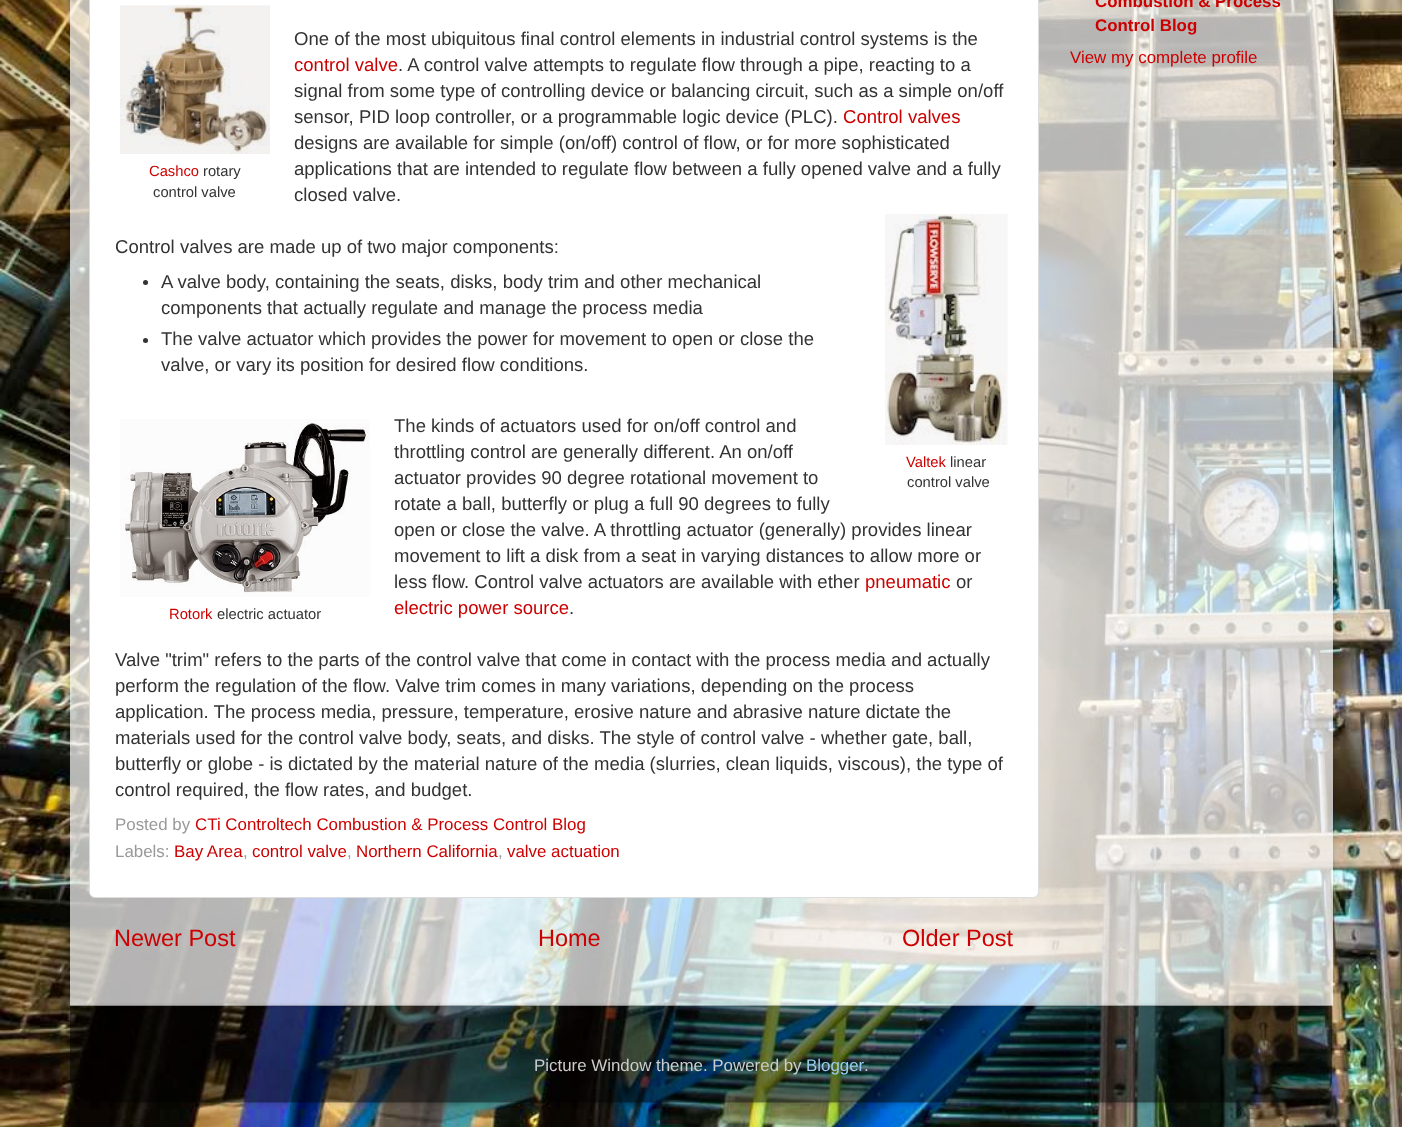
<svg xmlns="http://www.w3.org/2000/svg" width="1402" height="1127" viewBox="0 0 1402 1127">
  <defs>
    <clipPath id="clip1"><path d="M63 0H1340V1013H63ZM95-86H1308C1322-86 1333-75 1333-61V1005H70V-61C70-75 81-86 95-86Z" clip-rule="evenodd"/></clipPath>
    <clipPath id="clip2"><path d="M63 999H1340V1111H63ZM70 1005H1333V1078C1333 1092 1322 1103 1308 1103H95C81 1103 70 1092 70 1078Z" clip-rule="evenodd"/></clipPath>
  </defs>
  <rect width="100%" height="100%" fill="#fff"/>
  <image x="0" y="0" width="1402" height="1127" href="img/1.png"/>
  <g clip-path="url(#clip1)">
    <rect x="70" y="-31" width="1263" height="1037" rx="25" fill="#00000026" filter="blur(2px)"/>
  </g>
  <path d="M70 0h1263v1006H70z" fill="#ffffffb3"/>
  <rect x="89.5" y="-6.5" width="949" height="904" rx="5.5" fill="#fff" stroke="#ddd"/>
  <image x="120" y="5" width="150" height="149" href="img/2.png"/>
  <circle cx="145.5" cy="282.5" r="2.5" fill="#333"/>
  <circle cx="145.5" cy="340.5" r="2.5" fill="#333"/>
  <image x="885" y="214" width="123" height="231" href="img/3.png"/>
  <image x="120" y="419" width="250" height="178" href="img/4.png"/>
  <g clip-path="url(#clip2)">
    <rect x="70" y="1006" width="1263" height="98" rx="25" fill="#00000026" filter="blur(2px)"/>
  </g>
  <image x="70" y="1005" width="1263" height="98" href="img/5.png"/>
  <text x="294" y="45" font-family="Liberation Sans" font-size="18.55" fill="#333">One of the most ubiquitous final control elements in industrial control systems is the</text>
  <text x="294" y="71" font-family="Liberation Sans" font-size="18.55" fill="#c00">control valve</text>
  <g font-family="Liberation Sans" font-size="18.55" fill="#333">
    <text x="398" y="71">. A control valve attempts to regulate flow through a pipe, reacting to a</text>
    <text x="294" y="97">signal from some type of controlling device or balancing circuit, such as a simple on/off</text>
    <text x="294" y="123">sensor, PID loop controller, or a programmable logic device (PLC).</text>
  </g>
  <text x="843" y="123" font-family="Liberation Sans" font-size="18.55" fill="#c00">Control valves</text>
  <text x="294" y="149" font-family="Liberation Sans" font-size="18.55" fill="#333">designs are available for simple (on/off) control of flow, or for more sophisticated</text>
  <text x="149" y="176" font-family="Liberation Sans" font-size="14.75" fill="#c00">Cashco</text>
  <g font-family="Liberation Sans" font-size="14.75" fill="#333">
    <text x="203" y="176">rotary</text>
    <text x="153" y="197">control valve</text>
  </g>
  <g font-family="Liberation Sans" font-size="18.55" fill="#333">
    <text x="294" y="175">applications that are intended to regulate flow between a fully opened valve and a fully</text>
    <text x="294" y="201">closed valve.</text>
    <text x="115" y="253">Control valves are made up of two major components:</text>
    <text x="161" y="288">A valve body, containing the seats, disks, body trim and other mechanical</text>
    <text x="161" y="314">components that actually regulate and manage the process media</text>
    <text x="161" y="345">The valve actuator which provides the power for movement to open or close the</text>
    <text x="161" y="371">valve, or vary its position for desired flow conditions.</text>
    <text x="394" y="432">The kinds of actuators used for on/off control and</text>
    <text x="394" y="458">throttling control are generally different. An on/off</text>
    <text x="394" y="484">actuator provides 90 degree rotational movement to</text>
    <text x="394" y="510">rotate a ball, butterfly or plug a full 90 degrees to fully</text>
    <text x="394" y="536">open or close the valve. A throttling actuator (generally) provides linear</text>
    <text x="394" y="562">movement to lift a disk from a seat in varying distances to allow more or</text>
    <text x="394" y="588">less flow. Control valve actuators are available with ether</text>
  </g>
  <text x="865" y="588" font-family="Liberation Sans" font-size="18.55" fill="#c00">pneumatic</text>
  <text x="956" y="588" font-family="Liberation Sans" font-size="18.55" fill="#333">or</text>
  <text x="394" y="614" font-family="Liberation Sans" font-size="18.55" fill="#c00">electric power source</text>
  <g font-family="Liberation Sans" font-size="18.55" fill="#333">
    <text x="569" y="614">.</text>
    <text x="115" y="666">Valve "trim" refers to the parts of the control valve that come in contact with the process media and actually</text>
    <text x="115" y="692">perform the regulation of the flow. Valve trim comes in many variations, depending on the process</text>
    <text x="115" y="718">application. The process media, pressure, temperature, erosive nature and abrasive nature dictate the</text>
    <text x="115" y="744">materials used for the control valve body, seats, and disks. The style of control valve - whether gate, ball,</text>
    <text x="115" y="770">butterfly or globe - is dictated by the material nature of the media (slurries, clean liquids, viscous), the type of</text>
    <text x="115" y="796">control required, the flow rates, and budget.</text>
  </g>
  <text x="906" y="467" font-family="Liberation Sans" font-size="14.75" fill="#c00">Valtek</text>
  <g font-family="Liberation Sans" font-size="14.75" fill="#333">
    <text x="950" y="467">linear</text>
    <text x="907" y="487">control valve</text>
  </g>
  <text x="169" y="619" font-family="Liberation Sans" font-size="14.75" fill="#c00">Rotork</text>
  <text x="217" y="619" font-family="Liberation Sans" font-size="14.75" fill="#333">electric actuator</text>
  <text x="115" y="830" font-family="Liberation Sans" font-size="16.9" fill="#999">Posted by</text>
  <text x="195" y="830" font-family="Liberation Sans" font-size="16.9" fill="#c00">CTi Controltech Combustion &amp; Process Control Blog</text>
  <text x="115" y="857" font-family="Liberation Sans" font-size="16.9" fill="#999">Labels:</text>
  <text x="174" y="857" font-family="Liberation Sans" font-size="16.9" fill="#c00">Bay Area</text>
  <text x="243" y="857" font-family="Liberation Sans" font-size="16.9" fill="#999">,</text>
  <text x="252" y="857" font-family="Liberation Sans" font-size="16.9" fill="#c00">control valve</text>
  <text x="347" y="857" font-family="Liberation Sans" font-size="16.9" fill="#999">,</text>
  <text x="356" y="857" font-family="Liberation Sans" font-size="16.9" fill="#c00">Northern California</text>
  <text x="498" y="857" font-family="Liberation Sans" font-size="16.9" fill="#999">,</text>
  <text x="507" y="857" font-family="Liberation Sans" font-size="16.9" fill="#c00">valve actuation</text>
  <g font-family="Liberation Sans" font-size="23.5" fill="#c00">
    <text x="114" y="946">Newer Post</text>
    <text x="538" y="946">Home</text>
    <text x="902" y="946">Older Post</text>
  </g>
  <g font-family="Liberation Sans" font-size="16.9" font-weight="bold" fill="#c00">
    <text x="1095" y="7">Combustion &amp; Process</text>
    <text x="1095" y="31">Control Blog</text>
  </g>
  <text x="1070" y="63" font-family="Liberation Sans" font-size="16.9" fill="#c00">View my complete profile</text>
  <text x="534" y="1071" font-family="Liberation Sans" font-size="16.9" fill="#ccc">Picture Window theme. Powered by</text>
  <text x="806" y="1071" font-family="Liberation Sans" font-size="16.9" fill="#9ce">Blogger</text>
  <text x="864" y="1071" font-family="Liberation Sans" font-size="16.9" fill="#ccc">.</text>
</svg>
